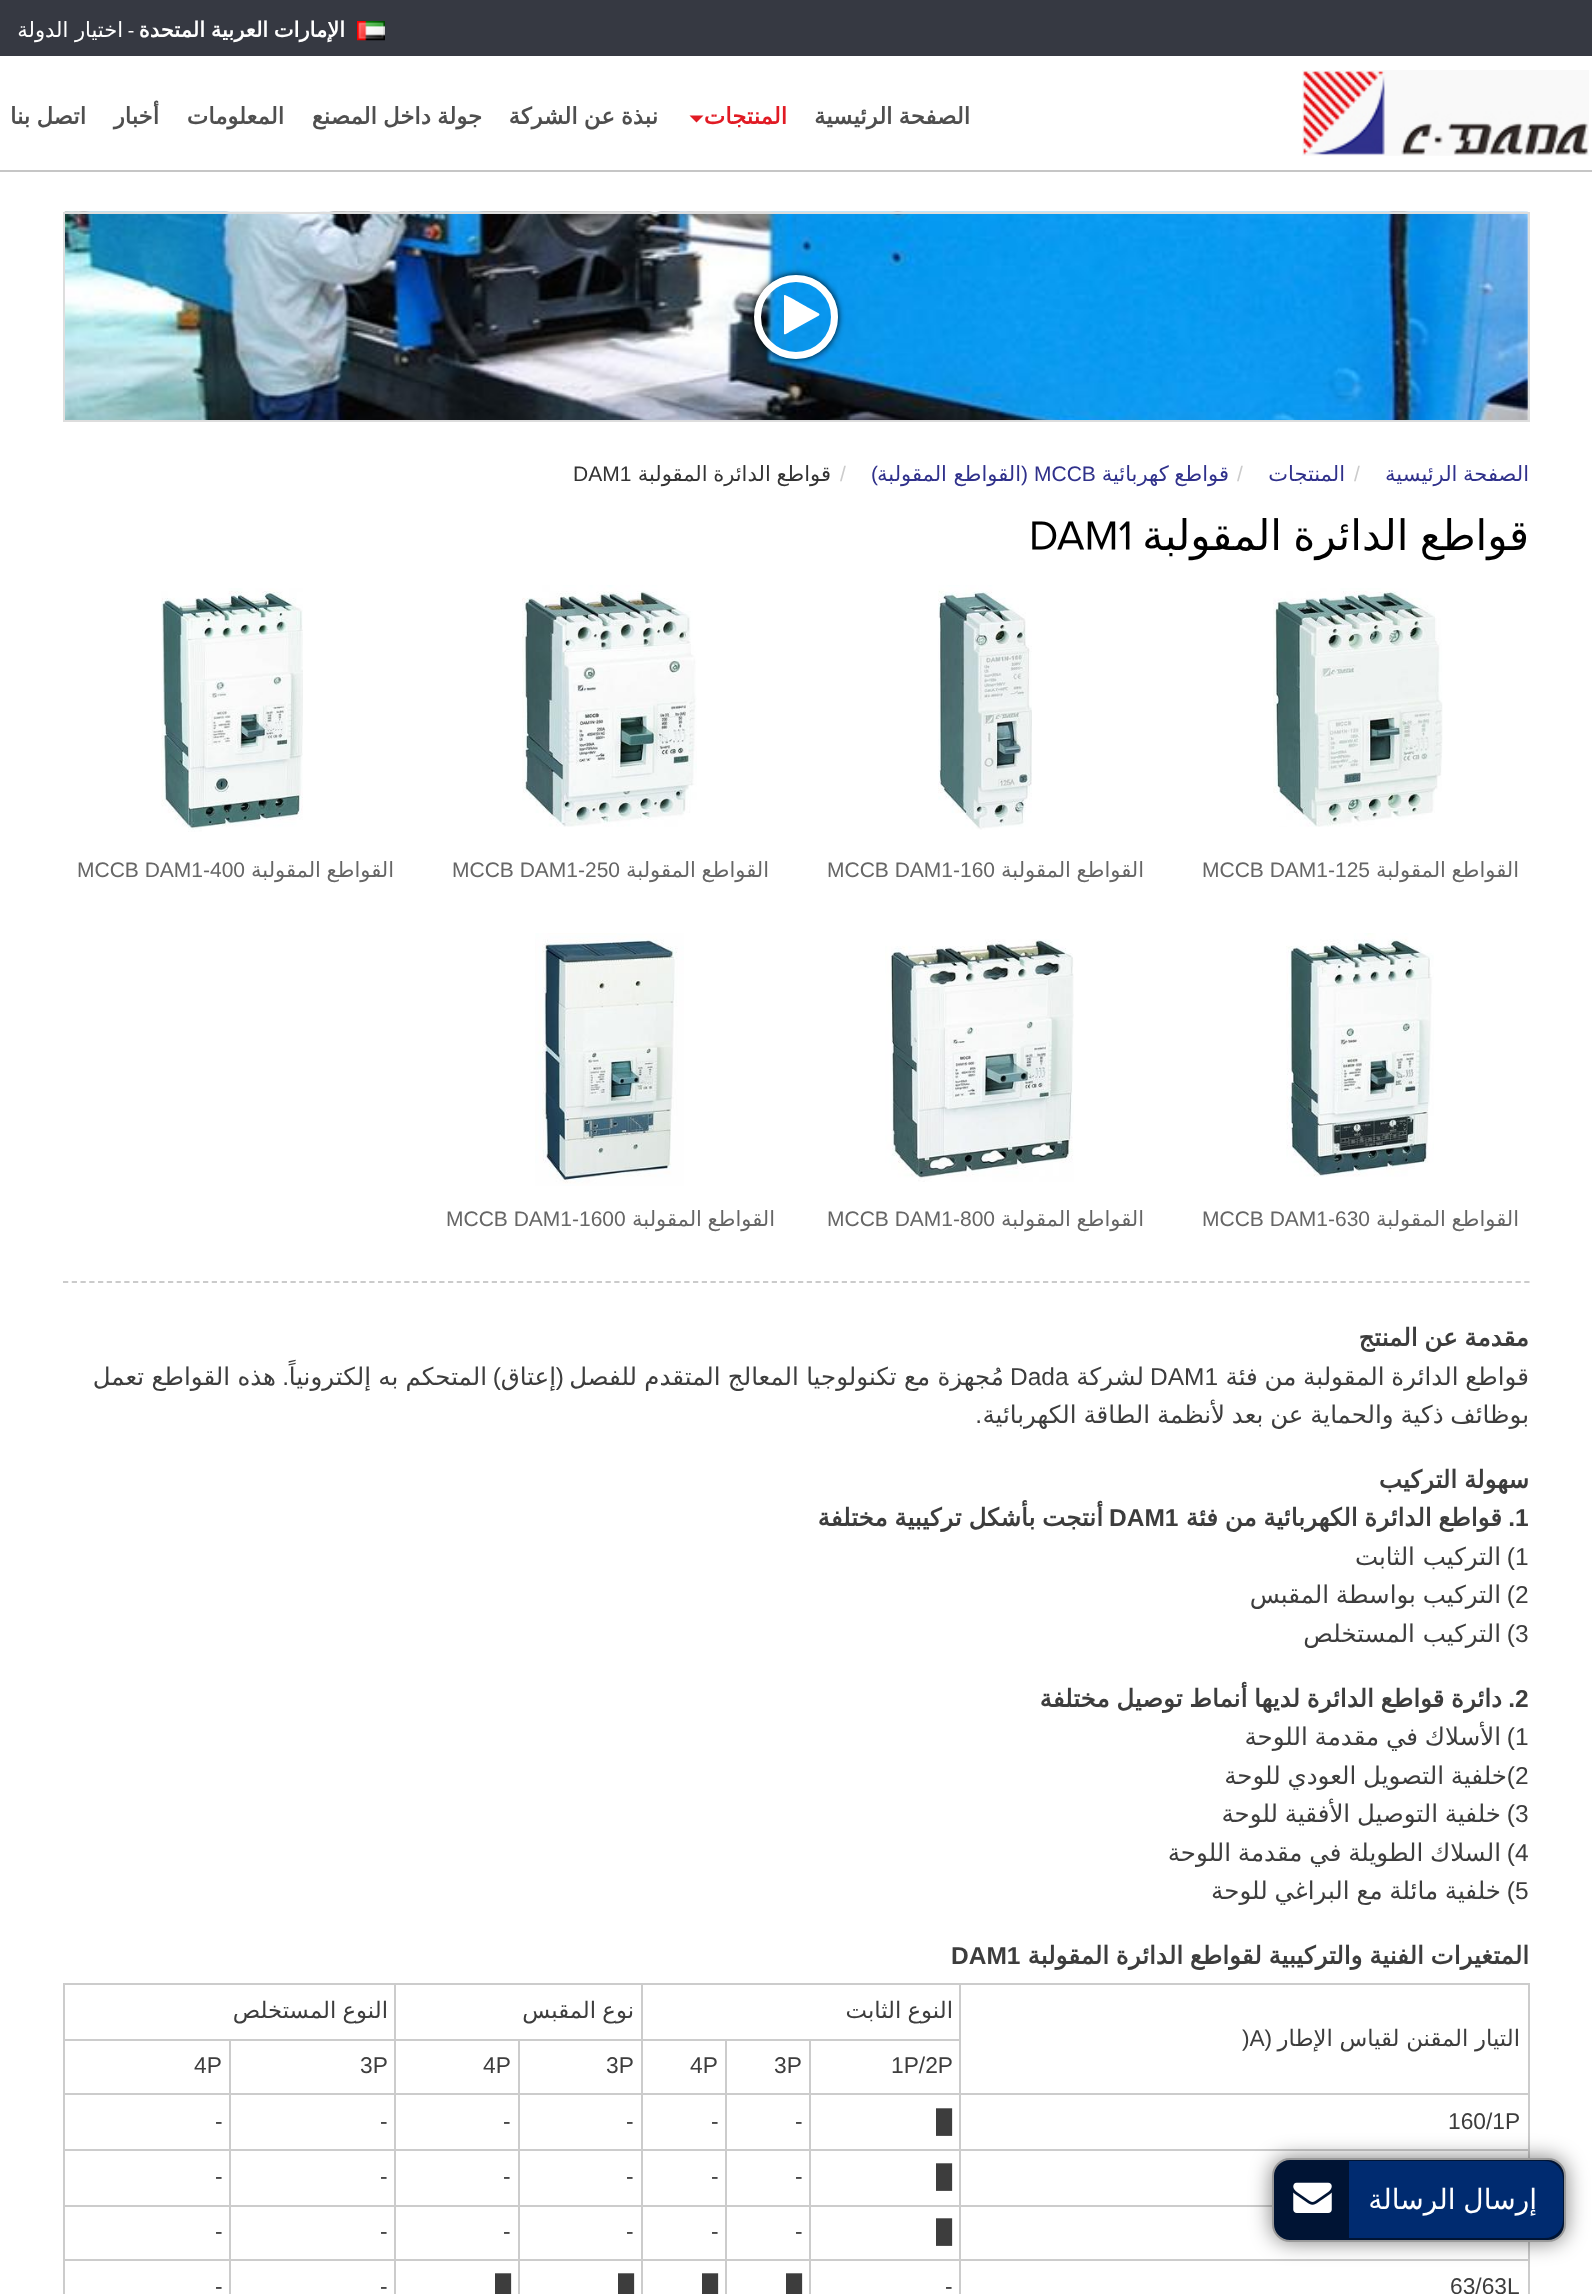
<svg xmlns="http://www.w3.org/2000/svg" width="1592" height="2294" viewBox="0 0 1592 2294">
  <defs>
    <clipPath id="clip1"><path d="M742 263H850V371H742ZM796 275C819 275 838 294 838 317C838 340 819 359 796 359C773 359 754 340 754 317C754 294 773 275 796 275Z" clip-rule="evenodd"/></clipPath>
  </defs>
  <rect width="100%" height="100%" fill="#fff"/>
  <path d="M0 170h1592v2H0z" fill="#c6c6c6"/>
  <path d="M0 0h1592v56H0z" fill="#363942"/>
  <image x="357" y="21" width="28" height="20" href="img/1.png"/>
  <path d="M133.5 32.5V31H128.5V32.5Z" fill="#fff"/>
  <image x="1302" y="70" width="287" height="86" href="img/2.png"/>
  <path d="M689.5 115.5H703.5L696.5 122.5Z" fill="#e11b24"/>
  <image x="64" y="211" width="1464" height="209" href="img/3.png"/>
  <path d="M64 213h1465v208H64z" fill="none" stroke="#ddd" stroke-width="2"/>
  <g clip-path="url(#clip1)">
    <rect x="754" y="275" width="84" height="84" rx="42" fill="#000" filter="blur(3.5px)"/>
  </g>
  <circle cx="796" cy="317" r="38.5" fill="none" stroke="#fff" stroke-width="7"/>
  <path d="M819 315.5L791 331C790.5 331 785 335.5 784 334V295.5L784.5 295C785.5 294.5 805.5 306 808 307.5L819 313.5L819.5 314.5Z" fill="#fff"/>
  <image x="1032" y="521" width="98" height="29" href="img/4.png"/>
  <image x="1273" y="588" width="170" height="239" href="img/5.png"/>
  <image x="938" y="585" width="94" height="245" href="img/6.png"/>
  <image x="522" y="585" width="175" height="242" href="img/7.png"/>
  <image x="161" y="588" width="142" height="244" href="img/8.png"/>
  <image x="1286" y="933" width="148" height="244" href="img/9.png"/>
  <image x="885" y="939" width="189" height="243" href="img/10.png"/>
  <image x="535" y="933" width="149" height="253" href="img/11.png"/>
  <path d="M63 1282H1529.5" fill="none" stroke="#cbcbcb" stroke-width="1.8" stroke-dasharray="5.25 3.5"/>
  <path d="M63 1983h1467v2H63z" fill="#ccc"/>
  <path d="M1528 1983h2v311H1528z" fill="#ccc"/>
  <path d="M63 1983h2v311H63z" fill="#ccc"/>
  <path d="M63 2039h168v2H63z" fill="#ccc"/>
  <path d="M63 2093h168v2H63z" fill="#ccc"/>
  <path d="M63 2149h168v2H63z" fill="#ccc"/>
  <path d="M63 2205h168v2H63z" fill="#ccc"/>
  <path d="M63 2259h168v2H63z" fill="#ccc"/>
  <path d="M229 2259h2v35H229z" fill="#ccc"/>
  <path d="M229 2259h167v2H229z" fill="#ccc"/>
  <path d="M229 2205h2v56H229z" fill="#ccc"/>
  <path d="M229 2205h167v2H229z" fill="#ccc"/>
  <path d="M229 2149h2v58H229z" fill="#ccc"/>
  <path d="M229 2149h167v2H229z" fill="#ccc"/>
  <path d="M229 2093h2v58H229z" fill="#ccc"/>
  <path d="M229 2093h167v2H229z" fill="#ccc"/>
  <path d="M229 2039h2v56H229z" fill="#ccc"/>
  <path d="M229 2039h167v2H229z" fill="#ccc"/>
  <path d="M394 2259h2v35H394z" fill="#ccc"/>
  <path d="M394 2259h126v2H394z" fill="#ccc"/>
  <path d="M394 2205h2v56H394z" fill="#ccc"/>
  <path d="M394 2205h126v2H394z" fill="#ccc"/>
  <path d="M394 2149h2v58H394z" fill="#ccc"/>
  <path d="M394 2149h126v2H394z" fill="#ccc"/>
  <path d="M394 2093h2v58H394z" fill="#ccc"/>
  <path d="M394 2093h126v2H394z" fill="#ccc"/>
  <path d="M394 2039h2v56H394z" fill="#ccc"/>
  <path d="M394 2039h126v2H394z" fill="#ccc"/>
  <path d="M518 2259h2v35H518z" fill="#ccc"/>
  <path d="M518 2259h124v2H518z" fill="#ccc"/>
  <path d="M518 2205h2v56H518z" fill="#ccc"/>
  <path d="M518 2205h124v2H518z" fill="#ccc"/>
  <path d="M518 2149h2v58H518z" fill="#ccc"/>
  <path d="M518 2149h124v2H518z" fill="#ccc"/>
  <path d="M518 2093h2v58H518z" fill="#ccc"/>
  <path d="M518 2093h124v2H518z" fill="#ccc"/>
  <path d="M518 2039h2v56H518z" fill="#ccc"/>
  <path d="M518 2039h124v2H518z" fill="#ccc"/>
  <path d="M641 2259h2v35H641z" fill="#ccc"/>
  <path d="M641 2259h85v2H641z" fill="#ccc"/>
  <path d="M641 2205h2v56H641z" fill="#ccc"/>
  <path d="M641 2205h85v2H641z" fill="#ccc"/>
  <path d="M641 2149h2v58H641z" fill="#ccc"/>
  <path d="M641 2149h85v2H641z" fill="#ccc"/>
  <path d="M641 2093h2v58H641z" fill="#ccc"/>
  <path d="M641 2093h85v2H641z" fill="#ccc"/>
  <path d="M641 2039h2v56H641z" fill="#ccc"/>
  <path d="M641 2039h85v2H641z" fill="#ccc"/>
  <path d="M641 1983h2v58H641z" fill="#ccc"/>
  <path d="M394 1983h2v58H394z" fill="#ccc"/>
  <path d="M725 2259h2v35H725z" fill="#ccc"/>
  <path d="M725 2259h85v2H725z" fill="#ccc"/>
  <path d="M725 2205h2v56H725z" fill="#ccc"/>
  <path d="M725 2205h85v2H725z" fill="#ccc"/>
  <path d="M725 2149h2v58H725z" fill="#ccc"/>
  <path d="M725 2149h85v2H725z" fill="#ccc"/>
  <path d="M725 2093h2v58H725z" fill="#ccc"/>
  <path d="M725 2093h85v2H725z" fill="#ccc"/>
  <path d="M725 2039h2v56H725z" fill="#ccc"/>
  <path d="M725 2039h85v2H725z" fill="#ccc"/>
  <path d="M809 2259h2v35H809z" fill="#ccc"/>
  <path d="M809 2259h152v2H809z" fill="#ccc"/>
  <path d="M809 2205h2v56H809z" fill="#ccc"/>
  <path d="M809 2205h152v2H809z" fill="#ccc"/>
  <path d="M809 2149h2v58H809z" fill="#ccc"/>
  <path d="M809 2149h152v2H809z" fill="#ccc"/>
  <path d="M809 2093h2v58H809z" fill="#ccc"/>
  <path d="M809 2093h152v2H809z" fill="#ccc"/>
  <path d="M809 2039h2v56H809z" fill="#ccc"/>
  <path d="M809 2039h152v2H809z" fill="#ccc"/>
  <path d="M959 2259h2v35H959z" fill="#ccc"/>
  <path d="M959 2259h571v2H959z" fill="#ccc"/>
  <path d="M959 2205h2v56H959z" fill="#ccc"/>
  <path d="M959 2205h313v2H959z" fill="#ccc"/>
  <path d="M959 2149h2v58H959z" fill="#ccc"/>
  <path d="M959 2149h571v2H959z" fill="#ccc"/>
  <path d="M959 2093h2v58H959z" fill="#ccc"/>
  <path d="M959 2093h571v2H959z" fill="#ccc"/>
  <path d="M959 1983h2v112H959z" fill="#ccc"/>
  <rect x="1272" y="2158" width="294" height="84" rx="18" fill="#00000080" filter="blur(10.5px)"/>
  <rect x="1273" y="2159" width="292" height="82" rx="17" fill="#001434" stroke="#999" stroke-width="2"/>
  <path d="M1349 2161H1545C1555 2161 1563 2169 1563 2179V2220C1563 2230 1555 2238 1545 2238H1349Z" fill="#002b70"/>
  <image x="1293" y="2182" width="39" height="31" href="img/12.png"/>
  <text x="345" y="37" word-spacing="-1" font-family="DejaVu Sans" font-size="21" font-weight="bold" direction="rtl" fill="#fff">الإمارات العربية المتحدة</text>
  <text x="123" y="37" font-family="DejaVu Sans" font-size="21" direction="rtl" fill="#fff">اختيار الدولة</text>
  <text x="970" y="124" word-spacing="-1" font-family="DejaVu Sans" font-size="22.75" font-weight="bold" direction="rtl" fill="#4f4f4f">الصفحة الرئيسية</text>
  <text x="787" y="124" font-family="DejaVu Sans" font-size="22.75" font-weight="bold" direction="rtl" fill="#e11b24">المنتجات</text>
  <g font-family="DejaVu Sans" font-size="22.75" font-weight="bold" direction="rtl" fill="#4f4f4f">
    <text x="658" y="124" word-spacing="-1">نبذة عن الشركة</text>
    <text x="482" y="124" word-spacing="-1">جولة داخل المصنع</text>
    <text x="284" y="124">المعلومات</text>
    <text x="159" y="124">أخبار</text>
    <text x="86" y="124" word-spacing="-1">اتصل بنا</text>
  </g>
  <text x="1529" y="481" word-spacing="-1" font-family="DejaVu Sans" font-size="21" direction="rtl" fill="#30318b">الصفحة الرئيسية</text>
  <text x="1354" y="481" font-family="Liberation Sans" font-size="21" fill="#ccc">/</text>
  <text x="1345" y="481" font-family="DejaVu Sans" font-size="21" direction="rtl" fill="#30318b">المنتجات</text>
  <text x="1237" y="481" font-family="Liberation Sans" font-size="21" fill="#ccc">/</text>
  <text x="1229" y="481" word-spacing="-1" font-family="DejaVu Sans" font-size="21" direction="rtl" fill="#30318b">قواطع كهربائية</text>
  <text x="1034" y="481" font-family="Liberation Sans" font-size="21" fill="#30318b">MCCB</text>
  <text x="1028" y="481" font-family="Liberation Sans" font-size="21" direction="rtl" fill="#30318b">(</text>
  <text x="1021" y="481" font-family="DejaVu Sans" font-size="21" direction="rtl" fill="#30318b">القواطع المقولبة</text>
  <text x="878" y="481" font-family="Liberation Sans" font-size="21" direction="rtl" fill="#30318b">)</text>
  <text x="840" y="481" font-family="Liberation Sans" font-size="21" fill="#ccc">/</text>
  <text x="831" y="481" word-spacing="-1" font-family="DejaVu Sans" font-size="21" direction="rtl" fill="#333">قواطع الدائرة المقولبة</text>
  <text x="573" y="481" font-family="Liberation Sans" font-size="21" fill="#333">DAM1</text>
  <text x="1529" y="550" word-spacing="-2" font-family="DejaVu Sans" font-size="42" direction="rtl" fill="#000">قواطع الدائرة المقولبة</text>
  <text x="1519" y="877" word-spacing="-1" font-family="DejaVu Sans" font-size="21" direction="rtl" fill="#666">القواطع المقولبة</text>
  <text x="1202" y="877" font-family="Liberation Sans" font-size="21" fill="#666">MCCB DAM1-125</text>
  <text x="1144" y="877" word-spacing="-1" font-family="DejaVu Sans" font-size="21" direction="rtl" fill="#666">القواطع المقولبة</text>
  <text x="827" y="877" font-family="Liberation Sans" font-size="21" fill="#666">MCCB DAM1-160</text>
  <text x="769" y="877" word-spacing="-1" font-family="DejaVu Sans" font-size="21" direction="rtl" fill="#666">القواطع المقولبة</text>
  <text x="452" y="877" font-family="Liberation Sans" font-size="21" fill="#666">MCCB DAM1-250</text>
  <text x="394" y="877" word-spacing="-1" font-family="DejaVu Sans" font-size="21" direction="rtl" fill="#666">القواطع المقولبة</text>
  <text x="77" y="877" font-family="Liberation Sans" font-size="21" fill="#666">MCCB DAM1-400</text>
  <text x="1519" y="1226" word-spacing="-1" font-family="DejaVu Sans" font-size="21" direction="rtl" fill="#666">القواطع المقولبة</text>
  <text x="1202" y="1226" font-family="Liberation Sans" font-size="21" fill="#666">MCCB DAM1-630</text>
  <text x="1144" y="1226" word-spacing="-1" font-family="DejaVu Sans" font-size="21" direction="rtl" fill="#666">القواطع المقولبة</text>
  <text x="827" y="1226" font-family="Liberation Sans" font-size="21" fill="#666">MCCB DAM1-800</text>
  <text x="775" y="1226" word-spacing="-1" font-family="DejaVu Sans" font-size="21" direction="rtl" fill="#666">القواطع المقولبة</text>
  <text x="446" y="1226" font-family="Liberation Sans" font-size="21" fill="#666">MCCB DAM1-1600</text>
  <text x="1529" y="1346" word-spacing="-1" font-family="DejaVu Sans" font-size="24.5" font-weight="bold" direction="rtl" fill="#3d3d3d">مقدمة عن المنتج</text>
  <text x="1529" y="1385" word-spacing="-1" font-family="DejaVu Sans" font-size="24.5" direction="rtl" fill="#3d3d3d">قواطع الدائرة المقولبة من فئة</text>
  <text x="1150" y="1385" font-family="Liberation Sans" font-size="24.5" fill="#3d3d3d">DAM1</text>
  <text x="1144" y="1385" font-family="DejaVu Sans" font-size="24.5" direction="rtl" fill="#3d3d3d">لشركة</text>
  <text x="1010" y="1385" font-family="Liberation Sans" font-size="24.5" fill="#3d3d3d">Dada</text>
  <text x="1004" y="1385" word-spacing="-0.5" font-family="DejaVu Sans" font-size="24.5" direction="rtl" fill="#3d3d3d">مُجهزة مع تكنولوجيا المعالج المتقدم للفصل</text>
  <text x="564" y="1385" font-family="Liberation Sans" font-size="24.5" direction="rtl" fill="#3d3d3d">(</text>
  <text x="556" y="1385" font-family="DejaVu Sans" font-size="24.5" direction="rtl" fill="#3d3d3d">إعتاق</text>
  <text x="501" y="1385" font-family="Liberation Sans" font-size="24.5" direction="rtl" fill="#3d3d3d">)</text>
  <text x="487" y="1385" word-spacing="-0.5" font-family="DejaVu Sans" font-size="24.5" direction="rtl" fill="#3d3d3d">المتحكم به إلكترونياً</text>
  <text x="289" y="1385" font-family="Liberation Sans" font-size="24.5" direction="rtl" fill="#3d3d3d">.</text>
  <g font-family="DejaVu Sans" font-size="24.5" direction="rtl" fill="#3d3d3d">
    <text x="276" y="1385" word-spacing="-0.5">هذه القواطع تعمل</text>
    <text x="1529" y="1423" word-spacing="-1">بوظائف ذكية والحماية عن بعد لأنظمة الطاقة الكهربائية</text>
  </g>
  <text x="982" y="1423" font-family="Liberation Sans" font-size="24.5" direction="rtl" fill="#3d3d3d">.</text>
  <text x="1529" y="1488" word-spacing="-1" font-family="DejaVu Sans" font-size="24.5" font-weight="bold" direction="rtl" fill="#3d3d3d">سهولة التركيب</text>
  <text x="1515" y="1526" font-family="Liberation Sans" font-size="24.5" font-weight="bold" fill="#3d3d3d">1</text>
  <text x="1515" y="1526" font-family="Liberation Sans" font-size="24.5" font-weight="bold" direction="rtl" fill="#3d3d3d">.</text>
  <text x="1502" y="1526" word-spacing="-1" font-family="DejaVu Sans" font-size="24.5" font-weight="bold" direction="rtl" fill="#3d3d3d">قواطع الدائرة الكهربائية من فئة</text>
  <text x="1109" y="1526" font-family="Liberation Sans" font-size="24.5" font-weight="bold" fill="#3d3d3d">DAM1</text>
  <text x="1103" y="1526" word-spacing="-1" font-family="DejaVu Sans" font-size="24.5" font-weight="bold" direction="rtl" fill="#3d3d3d">أنتجت بأشكل تركيبية مختلفة</text>
  <text x="1515" y="1565" font-family="Liberation Sans" font-size="24.5" fill="#3d3d3d">1</text>
  <text x="1515" y="1565" font-family="Liberation Sans" font-size="24.5" direction="rtl" fill="#3d3d3d">)</text>
  <text x="1501" y="1565" font-family="DejaVu Sans" font-size="24.5" direction="rtl" fill="#3d3d3d">التركيب الثابت</text>
  <text x="1515" y="1603" font-family="Liberation Sans" font-size="24.5" fill="#3d3d3d">2</text>
  <text x="1515" y="1603" font-family="Liberation Sans" font-size="24.5" direction="rtl" fill="#3d3d3d">)</text>
  <text x="1501" y="1603" word-spacing="-1" font-family="DejaVu Sans" font-size="24.5" direction="rtl" fill="#3d3d3d">التركيب بواسطة المقبس</text>
  <text x="1515" y="1642" font-family="Liberation Sans" font-size="24.5" fill="#3d3d3d">3</text>
  <text x="1515" y="1642" font-family="Liberation Sans" font-size="24.5" direction="rtl" fill="#3d3d3d">)</text>
  <text x="1501" y="1642" font-family="DejaVu Sans" font-size="24.5" direction="rtl" fill="#3d3d3d">التركيب المستخلص</text>
  <text x="1515" y="1707" font-family="Liberation Sans" font-size="24.5" font-weight="bold" fill="#3d3d3d">2</text>
  <text x="1515" y="1707" font-family="Liberation Sans" font-size="24.5" font-weight="bold" direction="rtl" fill="#3d3d3d">.</text>
  <text x="1502" y="1707" word-spacing="-1" font-family="DejaVu Sans" font-size="24.5" font-weight="bold" direction="rtl" fill="#3d3d3d">دائرة قواطع الدائرة لديها أنماط توصيل مختلفة</text>
  <text x="1515" y="1745" font-family="Liberation Sans" font-size="24.5" fill="#3d3d3d">1</text>
  <text x="1515" y="1745" font-family="Liberation Sans" font-size="24.5" direction="rtl" fill="#3d3d3d">)</text>
  <text x="1501" y="1745" word-spacing="-1" font-family="DejaVu Sans" font-size="24.5" direction="rtl" fill="#3d3d3d">الأسلاك في مقدمة اللوحة</text>
  <text x="1515" y="1784" font-family="Liberation Sans" font-size="24.5" fill="#3d3d3d">2</text>
  <text x="1507" y="1784" word-spacing="-1" font-family="DejaVu Sans" font-size="24.5" direction="rtl" fill="#3d3d3d">خلفية التصويل العودي للوحة</text>
  <text x="1515" y="1784" font-family="Liberation Sans" font-size="24.5" direction="rtl" fill="#3d3d3d">)</text>
  <text x="1515" y="1822" font-family="Liberation Sans" font-size="24.5" fill="#3d3d3d">3</text>
  <text x="1515" y="1822" font-family="Liberation Sans" font-size="24.5" direction="rtl" fill="#3d3d3d">)</text>
  <text x="1501" y="1822" word-spacing="-1" font-family="DejaVu Sans" font-size="24.5" direction="rtl" fill="#3d3d3d">خلفية التوصيل الأفقية للوحة</text>
  <text x="1515" y="1861" font-family="Liberation Sans" font-size="24.5" fill="#3d3d3d">4</text>
  <text x="1515" y="1861" font-family="Liberation Sans" font-size="24.5" direction="rtl" fill="#3d3d3d">)</text>
  <text x="1501" y="1861" word-spacing="-1" font-family="DejaVu Sans" font-size="24.5" direction="rtl" fill="#3d3d3d">السلاك الطويلة في مقدمة اللوحة</text>
  <text x="1515" y="1899" font-family="Liberation Sans" font-size="24.5" fill="#3d3d3d">5</text>
  <text x="1515" y="1899" font-family="Liberation Sans" font-size="24.5" direction="rtl" fill="#3d3d3d">)</text>
  <text x="1501" y="1899" word-spacing="-1" font-family="DejaVu Sans" font-size="24.5" direction="rtl" fill="#3d3d3d">خلفية مائلة مع البراغي للوحة</text>
  <text x="1529" y="1964" word-spacing="-1" font-family="DejaVu Sans" font-size="24.5" font-weight="bold" direction="rtl" fill="#3d3d3d">المتغيرات الفنية والتركيبية لقواطع الدائرة المقولبة</text>
  <text x="951" y="1964" font-family="Liberation Sans" font-size="24.5" font-weight="bold" fill="#3d3d3d">DAM1</text>
  <g font-family="DejaVu Sans" font-size="22.75" direction="rtl" fill="#3d3d3d">
    <text x="953" y="2018" word-spacing="-1">النوع الثابت</text>
    <text x="634" y="2018" word-spacing="-1">نوع المقبس</text>
    <text x="388" y="2018" word-spacing="-1">النوع المستخلص</text>
    <text x="1520" y="2046" word-spacing="-0.5">التيار المقنن لقياس الإطار</text>
  </g>
  <text x="1272" y="2046" font-family="Liberation Sans" font-size="22.75" direction="rtl" fill="#3d3d3d">(</text>
  <g font-family="Liberation Sans" font-size="22.75" fill="#3d3d3d">
    <text x="1242" y="2046">)A</text>
    <text x="891" y="2073">1P/2P</text>
    <text x="774" y="2073">3P</text>
    <text x="690" y="2073">4P</text>
    <text x="606" y="2073">3P</text>
    <text x="483" y="2073">4P</text>
    <text x="360" y="2073">3P</text>
    <text x="194" y="2073">4P</text>
    <text x="1448" y="2129">160/1P</text>
    <text x="936" y="2129">█</text>
    <text x="795" y="2129">-</text>
    <text x="711" y="2129">-</text>
    <text x="626" y="2129">-</text>
    <text x="503" y="2129">-</text>
    <text x="380" y="2129">-</text>
    <text x="215" y="2129">-</text>
    <text x="936" y="2184">█</text>
    <text x="795" y="2184">-</text>
    <text x="711" y="2184">-</text>
    <text x="626" y="2184">-</text>
    <text x="503" y="2184">-</text>
    <text x="380" y="2184">-</text>
    <text x="215" y="2184">-</text>
    <text x="936" y="2239">█</text>
    <text x="795" y="2239">-</text>
    <text x="711" y="2239">-</text>
    <text x="626" y="2239">-</text>
    <text x="503" y="2239">-</text>
    <text x="380" y="2239">-</text>
    <text x="215" y="2239">-</text>
    <text x="1450" y="2294">63/63L</text>
    <text x="945" y="2294">-</text>
    <text x="786" y="2294">█</text>
    <text x="702" y="2294">█</text>
    <text x="618" y="2294">█</text>
    <text x="495" y="2294">█</text>
    <text x="380" y="2294">-</text>
    <text x="215" y="2294">-</text>
  </g>
  <text x="1537" y="2209" word-spacing="-1" font-family="DejaVu Sans" font-size="28" direction="rtl" fill="#fff">إرسال الرسالة</text>
</svg>
